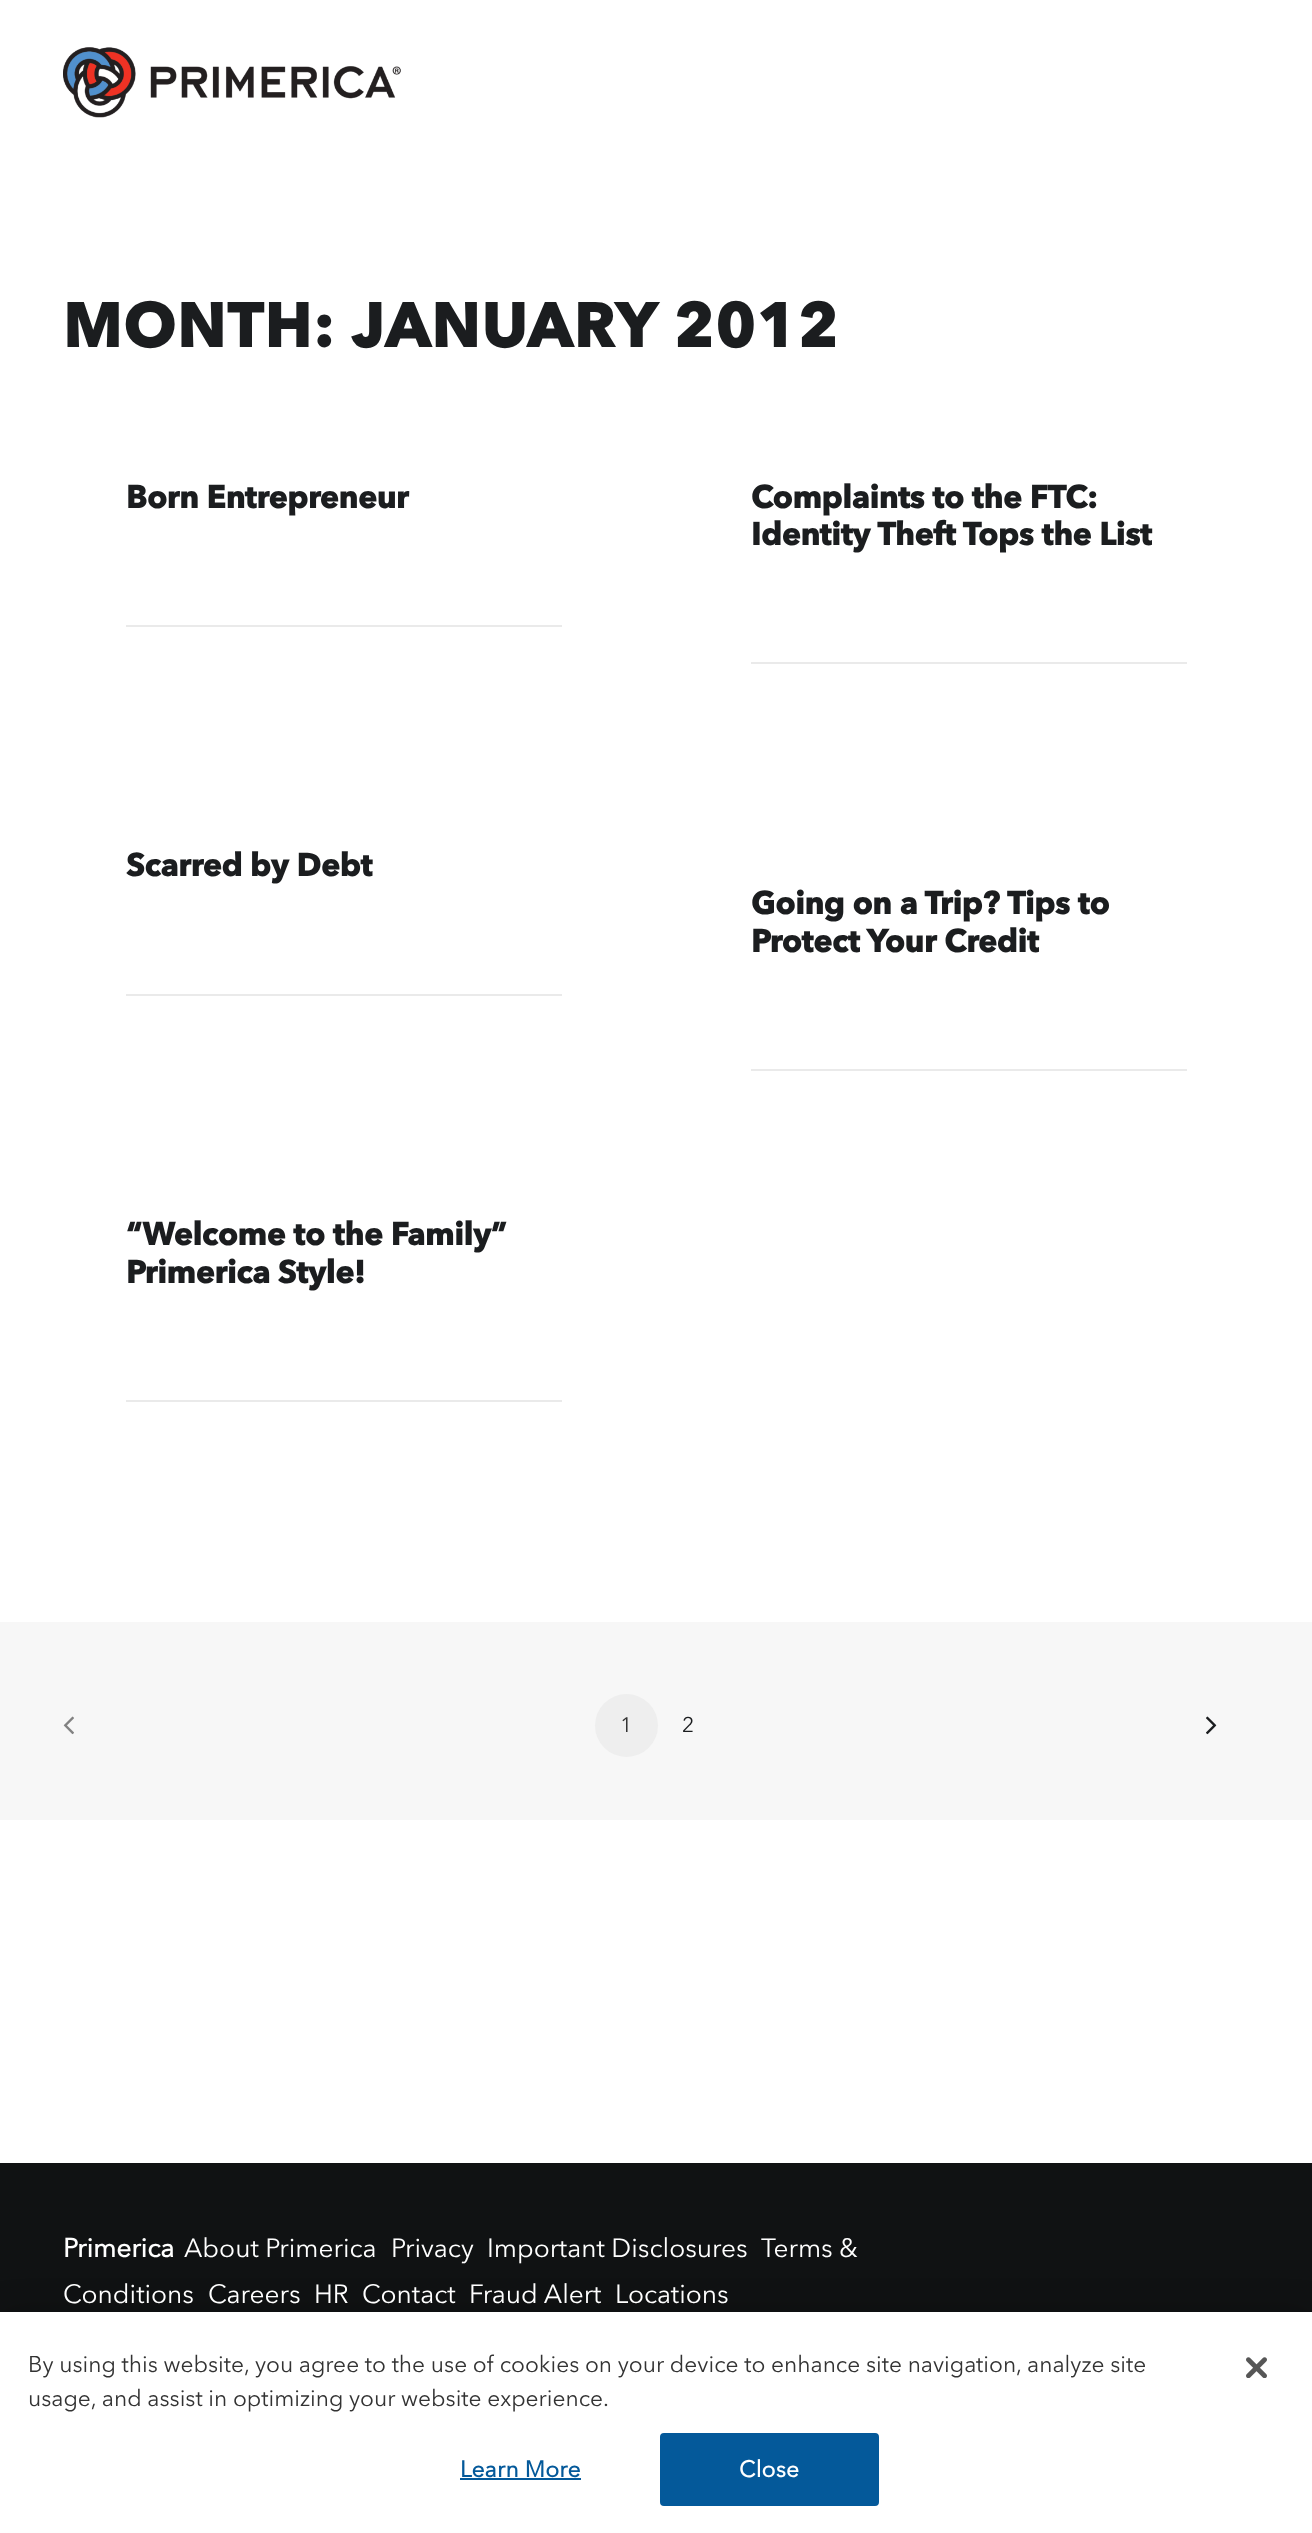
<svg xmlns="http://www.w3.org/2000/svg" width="1312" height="2533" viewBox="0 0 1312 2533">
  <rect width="100%" height="100%" fill="#fff"/>
  <image x="63" y="47" width="338" height="71" href="img/1.png"/>
  <path d="M126 625h436v2H126z" fill="#eaeaea"/>
  <path d="M751 662h436v2H751z" fill="#eaeaea"/>
  <path d="M126 994h436v2H126z" fill="#eaeaea"/>
  <path d="M751 1069h436v2H751z" fill="#eaeaea"/>
  <path d="M126 1400h436v2H126z" fill="#eaeaea"/>
  <path d="M0 1622h1312v198H0z" fill="#f7f7f7"/>
  <image x="63" y="1716" width="11" height="19" href="img/2.png"/>
  <circle cx="626.5" cy="1725.5" r="31.5" fill="#eee"/>
  <image x="1206" y="1716" width="11" height="19" href="img/3.png"/>
  <path d="M0 2163h1312v149H0z" fill="#101213"/>
  <path d="M0 2312h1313v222H0z" fill="#00000033" filter="blur(16px)"/>
  <path d="M0 2312h1312v221H0z" fill="#fff"/>
  <path d="M460 2478h121v2H460z" fill="#04599a"/>
  <rect x="661" y="2434" width="217" height="71" rx="3" fill="#04599a" stroke="#04599a" stroke-width="2"/>
  <image x="1246" y="2357" width="21" height="21" href="img/4.png"/>
  <text x="63" y="347" font-family="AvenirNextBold" font-size="61.25" font-weight="bold" letter-spacing="1.75" fill="#1b1d1f">MONTH: JANUARY 2012</text>
  <g font-family="AvenirNextBold" font-size="31.5" font-weight="bold" fill="#1b1d1f">
    <text x="126" y="508">Born Entrepreneur</text>
    <text x="751" y="508">Complaints to the FTC:</text>
    <text x="751" y="545">Identity Theft Tops the List</text>
    <text x="126" y="876">Scarred by Debt</text>
    <text x="751" y="914">Going on a Trip?</text>
    <text x="1007" y="914">Tips to</text>
    <text x="751" y="952">Protect Your Credit</text>
    <text x="126" y="1245">“Welcome to the Family”</text>
    <text x="126" y="1283">Primerica Style!</text>
  </g>
  <text x="620" y="1732" font-family="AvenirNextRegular" font-size="21" fill="#333">1</text>
  <text x="682" y="1732" font-family="AvenirNextRegular" font-size="21" fill="#1b1d1f">2</text>
  <text x="63" y="2257" font-family="AvenirNextRegular" font-size="26.25" font-weight="bold" fill="#fff">Primerica</text>
  <g font-family="AvenirNextRegular" font-size="26.25" fill="#fff">
    <text x="184" y="2257">About Primerica</text>
    <text x="391" y="2257">Privacy</text>
    <text x="487" y="2257">Important Disclosures</text>
    <text x="761" y="2257">Terms &amp;</text>
    <text x="63" y="2303">Conditions</text>
    <text x="208" y="2303">Careers</text>
    <text x="314" y="2303">HR</text>
    <text x="362" y="2303">Contact</text>
    <text x="469" y="2303">Fraud Alert</text>
    <text x="615" y="2303">Locations</text>
  </g>
  <g font-family="AvenirNextRegular" font-size="22.75" fill="#333">
    <text x="28" y="2372">By using this website, you agree to the use of cookies on your device to enhance site navigation, analyze site</text>
    <text x="28" y="2406">usage, and assist in optimizing your website experience.</text>
  </g>
  <text x="460" y="2477" font-family="AvenirNextRegular" font-size="22.75" font-weight="bold" letter-spacing="0.25" fill="#04599a">Learn More</text>
  <text x="739" y="2477" font-family="AvenirNextRegular" font-size="22.75" font-weight="bold" letter-spacing="0.25" fill="#fff">Close</text>
</svg>
